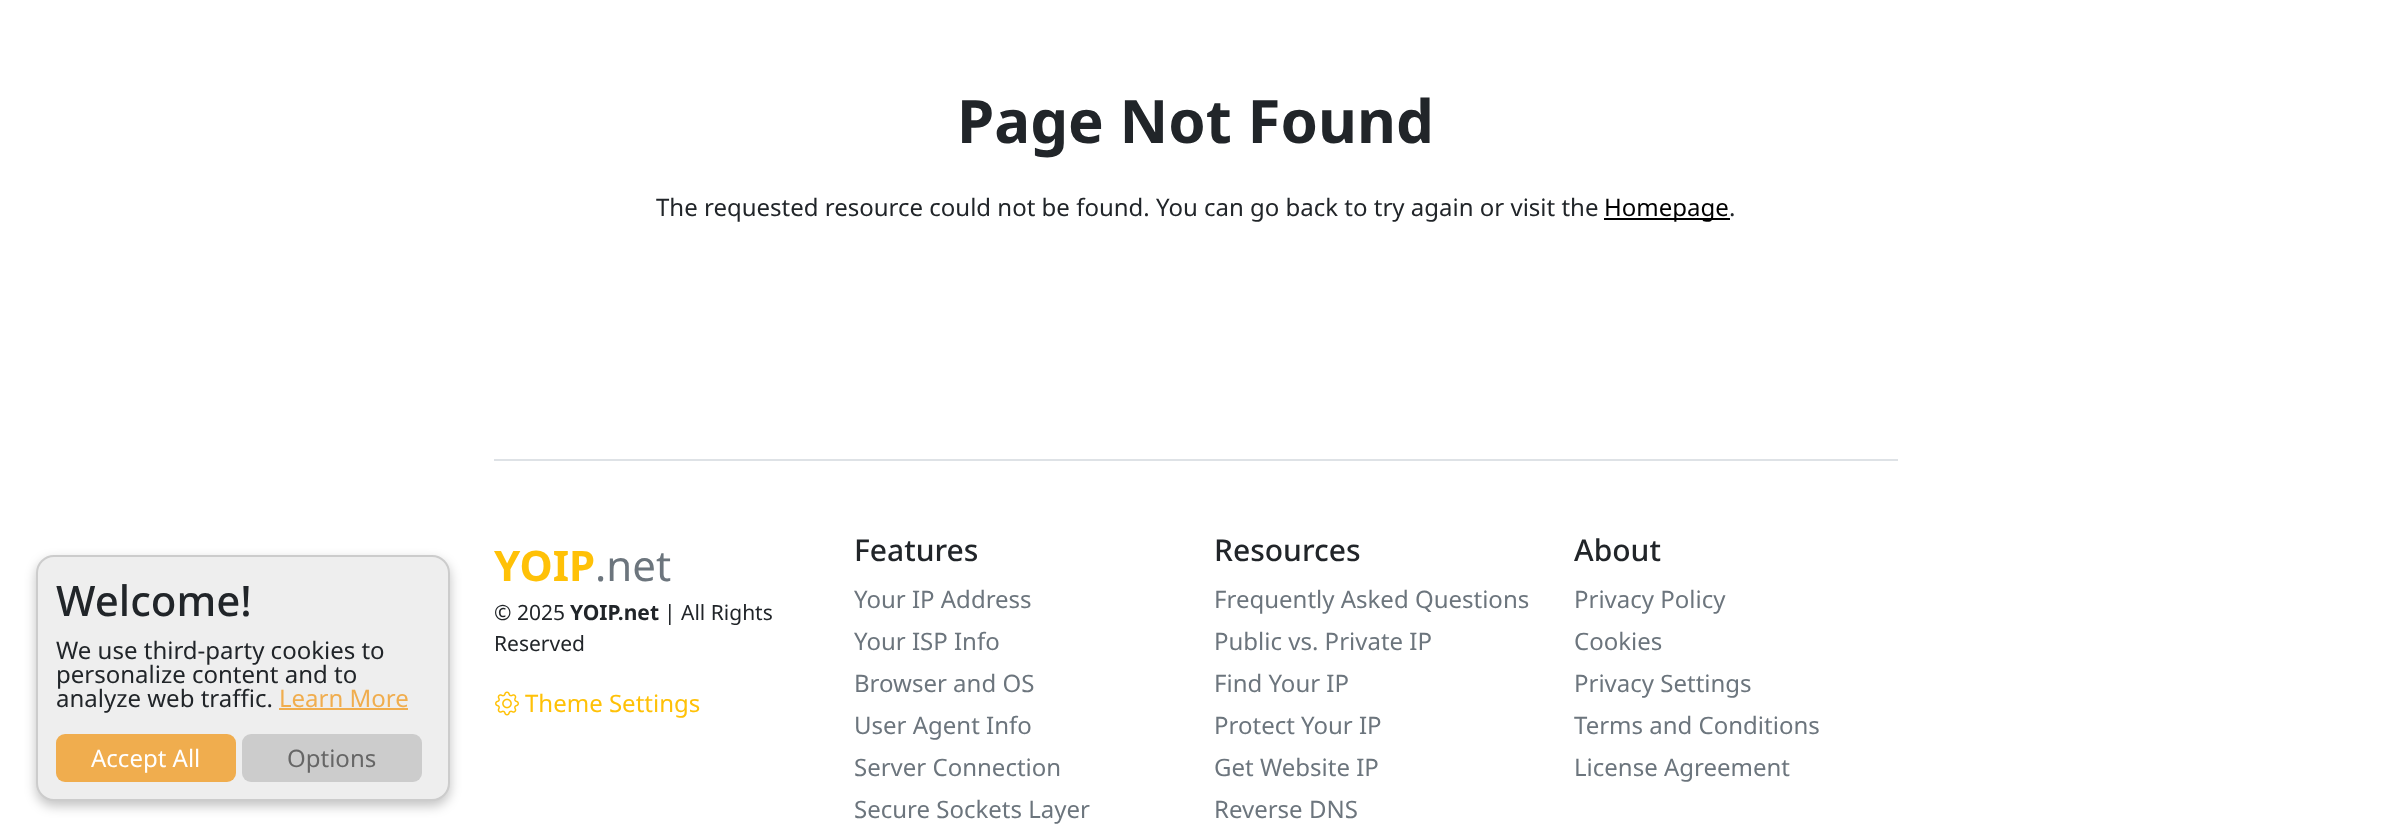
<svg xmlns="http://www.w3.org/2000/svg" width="2391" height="836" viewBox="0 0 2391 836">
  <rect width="100%" height="100%" fill="#fff"/>
  <rect x="36" y="560" width="414" height="246" rx="18" fill="#0000003d" filter="blur(6px)"/>
  <rect x="37" y="556" width="412" height="244" rx="17" fill="#eee" stroke="#ccc" stroke-width="2"/>
  <path d="M279 708h129v2H279z" fill="#f0ad4e"/>
  <rect x="56" y="734" width="180" height="48" rx="9" fill="#f0ad4e"/>
  <rect x="242" y="734" width="180" height="48" rx="9" fill="#ccc"/>
  <path d="M1604 218h126v2H1604z" fill="#000"/>
  <path d="M494 459h1404v2H494z" fill="#dee2e6"/>
  <image x="495" y="691" width="24" height="25" href="img/1.png"/>
  <text x="56" y="616" font-family="Noto Sans" font-size="42" font-weight="500" fill="#212529">Welcome!</text>
  <g font-family="Noto Sans" font-size="24" fill="#212529">
    <text x="56" y="659">We use third-party cookies to</text>
    <text x="56" y="683">personalize content and to</text>
    <text x="56" y="707">analyze web traffic.</text>
  </g>
  <text x="279" y="707" font-family="Noto Sans" font-size="24" fill="#f0ad4e">Learn More</text>
  <text x="91" y="767" font-family="Noto Sans" font-size="24" fill="#fff">Accept All</text>
  <text x="287" y="767" font-family="Noto Sans" font-size="24" fill="#666">Options</text>
  <text x="957" y="143" font-family="Noto Sans" font-size="60" font-weight="bold" fill="#212529">Page Not Found</text>
  <text x="656" y="216" font-family="Noto Sans" font-size="24" fill="#212529">The requested resource could not be found. You can go back to try again or visit the</text>
  <text x="1604" y="216" font-family="Noto Sans" font-size="24" fill="#000">Homepage</text>
  <text x="1729" y="216" font-family="Noto Sans" font-size="24" fill="#212529">.</text>
  <text x="494" y="581" font-family="Noto Sans" font-size="42" font-weight="bold" fill="#ffc107">YOIP</text>
  <text x="595" y="581" font-family="Noto Sans" font-size="42" fill="#6c757d">.net</text>
  <text x="494" y="620" font-family="Noto Sans" font-size="21" fill="#212529">© 2025</text>
  <text x="570" y="620" font-family="Noto Sans" font-size="21" font-weight="bold" fill="#212529">YOIP.net</text>
  <g font-family="Noto Sans" font-size="21" fill="#212529">
    <text x="664" y="620">| All Rights</text>
    <text x="494" y="651">Reserved</text>
  </g>
  <text x="525" y="712" font-family="Noto Sans" font-size="24" fill="#ffc107">Theme Settings</text>
  <text x="854" y="561" font-family="Noto Sans" font-size="30" font-weight="500" fill="#212529">Features</text>
  <g font-family="Noto Sans" font-size="24" fill="#6c757d">
    <text x="854" y="608">Your IP Address</text>
    <text x="854" y="650">Your ISP Info</text>
    <text x="854" y="692">Browser and OS</text>
    <text x="854" y="734">User Agent Info</text>
    <text x="854" y="776">Server Connection</text>
    <text x="854" y="818">Secure Sockets Layer</text>
  </g>
  <text x="1214" y="561" font-family="Noto Sans" font-size="30" font-weight="500" fill="#212529">Resources</text>
  <g font-family="Noto Sans" font-size="24" fill="#6c757d">
    <text x="1214" y="608">Frequently Asked Questions</text>
    <text x="1214" y="650">Public vs. Private IP</text>
    <text x="1214" y="692">Find Your IP</text>
    <text x="1214" y="734">Protect Your IP</text>
    <text x="1214" y="776">Get Website IP</text>
    <text x="1214" y="818">Reverse DNS</text>
  </g>
  <text x="1574" y="561" font-family="Noto Sans" font-size="30" font-weight="500" fill="#212529">About</text>
  <g font-family="Noto Sans" font-size="24" fill="#6c757d">
    <text x="1574" y="608">Privacy Policy</text>
    <text x="1574" y="650">Cookies</text>
    <text x="1574" y="692">Privacy Settings</text>
    <text x="1574" y="734">Terms and Conditions</text>
    <text x="1574" y="776">License Agreement</text>
  </g>
</svg>
